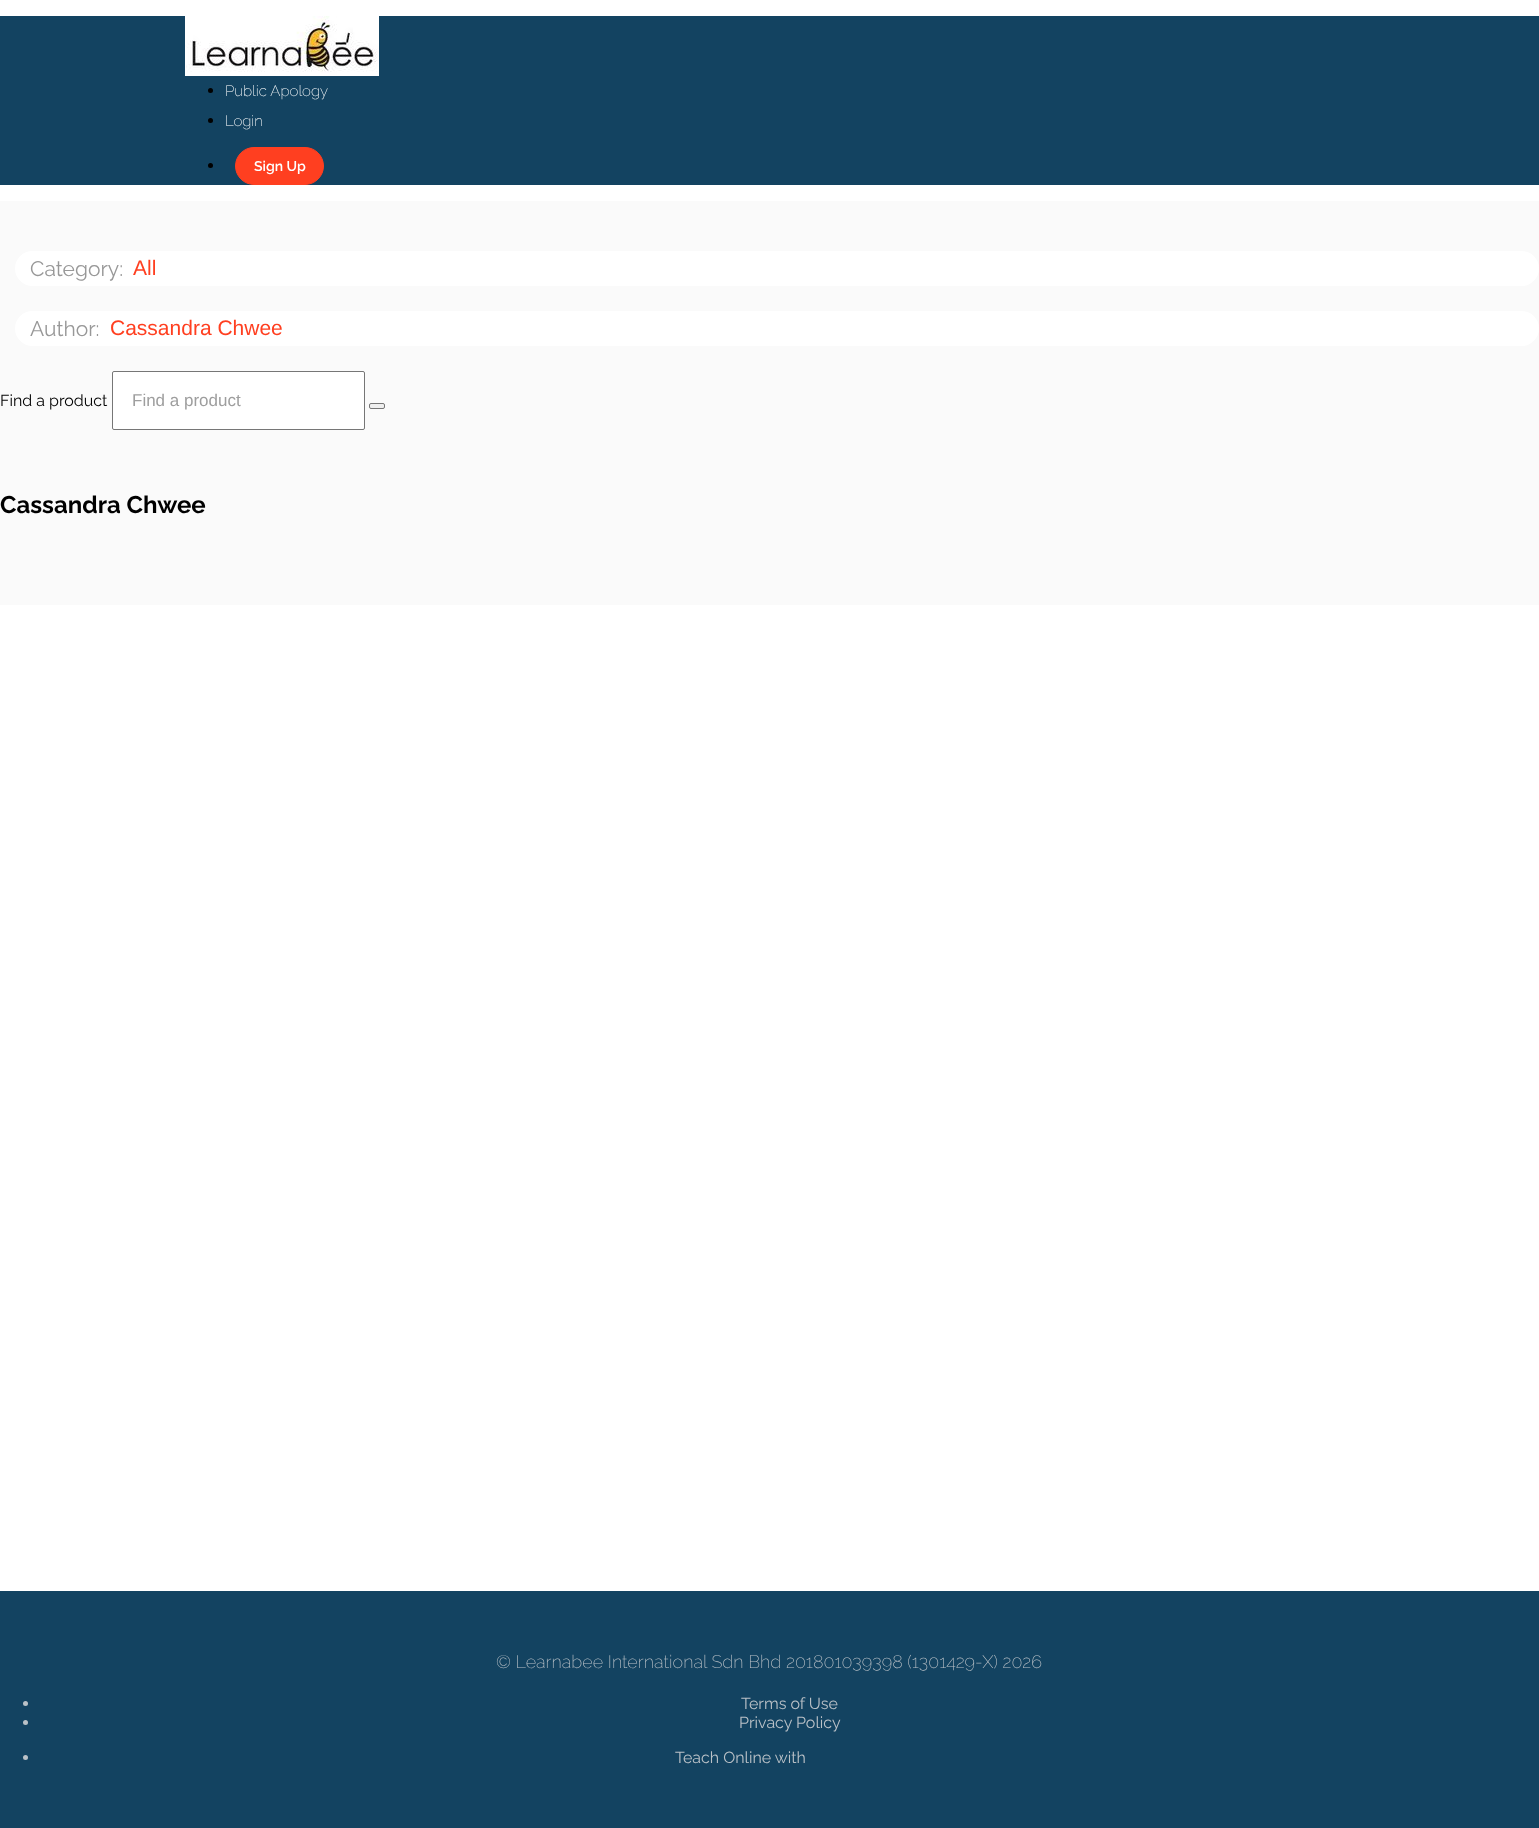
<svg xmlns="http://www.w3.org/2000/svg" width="1539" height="1828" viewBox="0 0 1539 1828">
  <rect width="100%" height="100%" fill="#fff"/>
  <path d="M0 16h1539v169H0z" fill="#134361"/>
  <image x="185" y="16" width="194" height="60" href="img/1.png"/>
  <circle cx="210.5" cy="90.5" r="2.5" fill="#000"/>
  <circle cx="210.5" cy="120.5" r="2.5" fill="#000"/>
  <circle cx="210.5" cy="165.5" r="2.5" fill="#000"/>
  <rect x="235.5" y="147.5" width="88" height="37" rx="18.5" fill="#ff3f20" stroke="#ff3f20"/>
  <path d="M0 201h1539v404H0z" fill="#fafafa"/>
  <rect x="15" y="251" width="1524" height="35" rx="17.5" fill="#fff"/>
  <rect x="15" y="311" width="1524" height="35" rx="17.5" fill="#fff"/>
  <rect x="112.5" y="371.5" width="252" height="58" rx="1.5" fill="#fff" stroke="#767676"/>
  <rect x="369.5" y="403.5" width="15" height="5" rx="1.5" fill="#efefef" stroke="#767676"/>
  <path d="M0 1591h1539v237H0z" fill="#134361"/>
  <circle cx="25.5" cy="1703.5" r="2.5" fill="#bac1c7"/>
  <circle cx="25.5" cy="1722.5" r="2.5" fill="#bac1c7"/>
  <circle cx="25.5" cy="1757.5" r="2.5" fill="#bac1c7"/>
  <g font-family="Raleway" font-size="15" font-weight="200" fill="#fff">
    <text x="225" y="96">Public Apology</text>
    <text x="225" y="126">Login</text>
  </g>
  <text x="254" y="171" font-family="Raleway" font-size="14" font-weight="600" fill="#fff">Sign Up</text>
  <text x="30" y="276" font-family="Raleway" font-size="21" fill="#989898">Category:</text>
  <text x="133" y="275" font-family="Liberation Sans" font-size="21" fill="#ff3f20">All</text>
  <text x="30" y="336" font-family="Raleway" font-size="21" fill="#989898">Author:</text>
  <text x="110" y="335" font-family="Liberation Sans" font-size="21" fill="#ff3f20">Cassandra Chwee</text>
  <text x="0" y="406" font-family="Raleway" font-size="16" fill="#000">Find a product</text>
  <text x="132" y="406" font-family="Liberation Sans" font-size="17" fill="#9e9e9e">Find a product</text>
  <text x="0" y="513" font-family="Raleway" font-size="24" font-weight="bold" fill="#000">Cassandra Chwee</text>
  <text x="496" y="1668" font-family="Raleway" font-size="18" font-weight="200" fill="#bac1c7">© Learnabee International Sdn Bhd 201801039398 (1301429-X) 2026</text>
  <g font-family="Raleway" font-size="16" fill="#bac1c7">
    <text x="741" y="1709">Terms of Use</text>
    <text x="739" y="1728">Privacy Policy</text>
    <text x="675" y="1763">Teach Online with</text>
  </g>
</svg>
